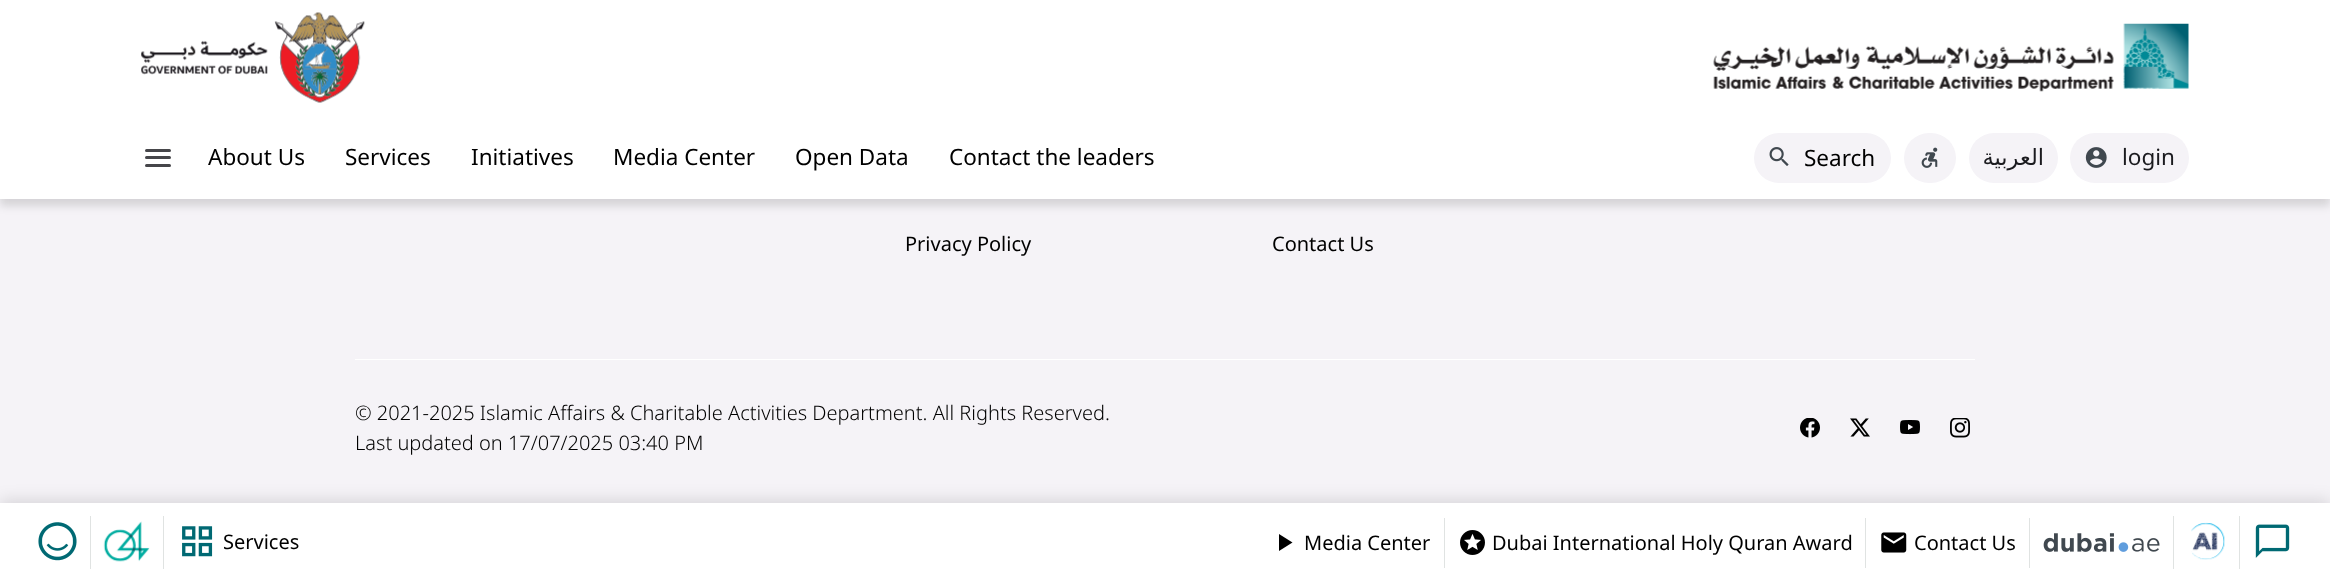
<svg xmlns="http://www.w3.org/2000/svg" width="2330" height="582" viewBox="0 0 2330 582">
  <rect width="100%" height="100%" fill="#f5f3f7"/>
  <path d="M0 8h2330v198H0z" fill="#00000021" filter="blur(4.5px)"/>
  <path d="M0 0h2330v199H0z" fill="#fff"/>
  <image x="141" y="12" width="224" height="91" href="img/1.png"/>
  <image x="1713" y="23" width="476" height="69" href="img/2.png"/>
  <rect x="145" y="149" width="26" height="3" rx="1.5" fill="#46464a"/>
  <rect x="145" y="156" width="26" height="3" rx="1.5" fill="#46464a"/>
  <rect x="145" y="164" width="26" height="3" rx="1.5" fill="#46464a"/>
  <rect x="1754" y="133" width="137" height="50" rx="25" fill="#f5f3f7"/>
  <image x="1769" y="147" width="20" height="19" href="img/3.png"/>
  <rect x="1904" y="133" width="52" height="50" rx="25" fill="#f5f3f7"/>
  <image x="1921" y="147" width="17" height="21" href="img/4.png"/>
  <rect x="1969" y="133" width="89" height="50" rx="25" fill="#f5f3f7"/>
  <rect x="2070" y="133" width="119" height="50" rx="25" fill="#f5f3f7"/>
  <image x="2085" y="147" width="22" height="21" href="img/5.png"/>
  <path d="M355 359h1620v1H355z" fill="#fff"/>
  <image x="1800" y="418" width="20" height="20" href="img/6.png"/>
  <image x="1850" y="418" width="20" height="19" href="img/7.png"/>
  <image x="1900" y="420" width="20" height="15" href="img/8.png"/>
  <image x="1950" y="418" width="20" height="20" href="img/9.png"/>
  <path d="M0 500h2330v80H0z" fill="#0000001f" filter="blur(8px)"/>
  <path d="M0 503h2330v79H0z" fill="#fff"/>
  <image x="38" y="522" width="39" height="39" href="img/10.png"/>
  <path d="M90 516h1v53H90z" fill="#e0e3e2"/>
  <image x="103" y="521" width="47" height="41" href="img/11.png"/>
  <path d="M163 516h1v53H163z" fill="#e0e3e2"/>
  <image x="182" y="526" width="31" height="31" href="img/12.png"/>
  <path d="M1279 534L1292.5 542.5L1279 551Z" fill="#000"/>
  <path d="M1444 518h1v50H1444z" fill="#e0e3e2"/>
  <image x="1460" y="530" width="25" height="25" href="img/13.png"/>
  <path d="M1865 518h1v50H1865z" fill="#e0e3e2"/>
  <image x="1881" y="532" width="26" height="21" href="img/14.png"/>
  <path d="M2029 518h1v50H2029z" fill="#e0e3e2"/>
  <image x="2043" y="533" width="117" height="19" href="img/15.png"/>
  <path d="M2173 516h1v53H2173z" fill="#e0e3e2"/>
  <image x="2191" y="522" width="34" height="38" href="img/16.png"/>
  <path d="M2239 516h1v53H2239z" fill="#e0e3e2"/>
  <image x="2255" y="524" width="35" height="34" href="img/17.png"/>
  <g font-family="Noto Sans" font-size="22.5" fill="#000">
    <text x="208" y="165">About Us</text>
    <text x="345" y="165">Services</text>
    <text x="471" y="165">Initiatives</text>
    <text x="613" y="165">Media Center</text>
    <text x="795" y="165">Open Data</text>
    <text x="949" y="165">Contact the leaders</text>
    <text x="1804" y="166">Search</text>
  </g>
  <text x="2044" y="165" font-family="DejaVu Sans" font-size="22.5" direction="rtl" fill="#1b1b1f">العربية</text>
  <text x="2122" y="165" font-family="Noto Sans" font-size="22.5" fill="#1b1b1f">login</text>
  <g font-family="Noto Sans" font-size="20" fill="#000">
    <text x="905" y="251">Privacy Policy</text>
    <text x="1272" y="251">Contact Us</text>
  </g>
  <g font-family="Noto Sans" font-size="20" font-weight="300" fill="#000">
    <text x="355" y="420">© 2021-2025 Islamic Affairs &amp; Charitable Activities Department. All Rights Reserved.</text>
    <text x="355" y="450">Last updated on 17/07/2025 03:40 PM</text>
  </g>
  <g font-family="Noto Sans" font-size="20" fill="#000">
    <text x="223" y="549">Services</text>
    <text x="1304" y="550">Media Center</text>
    <text x="1492" y="550">Dubai International Holy Quran Award</text>
    <text x="1914" y="550">Contact Us</text>
  </g>
</svg>
